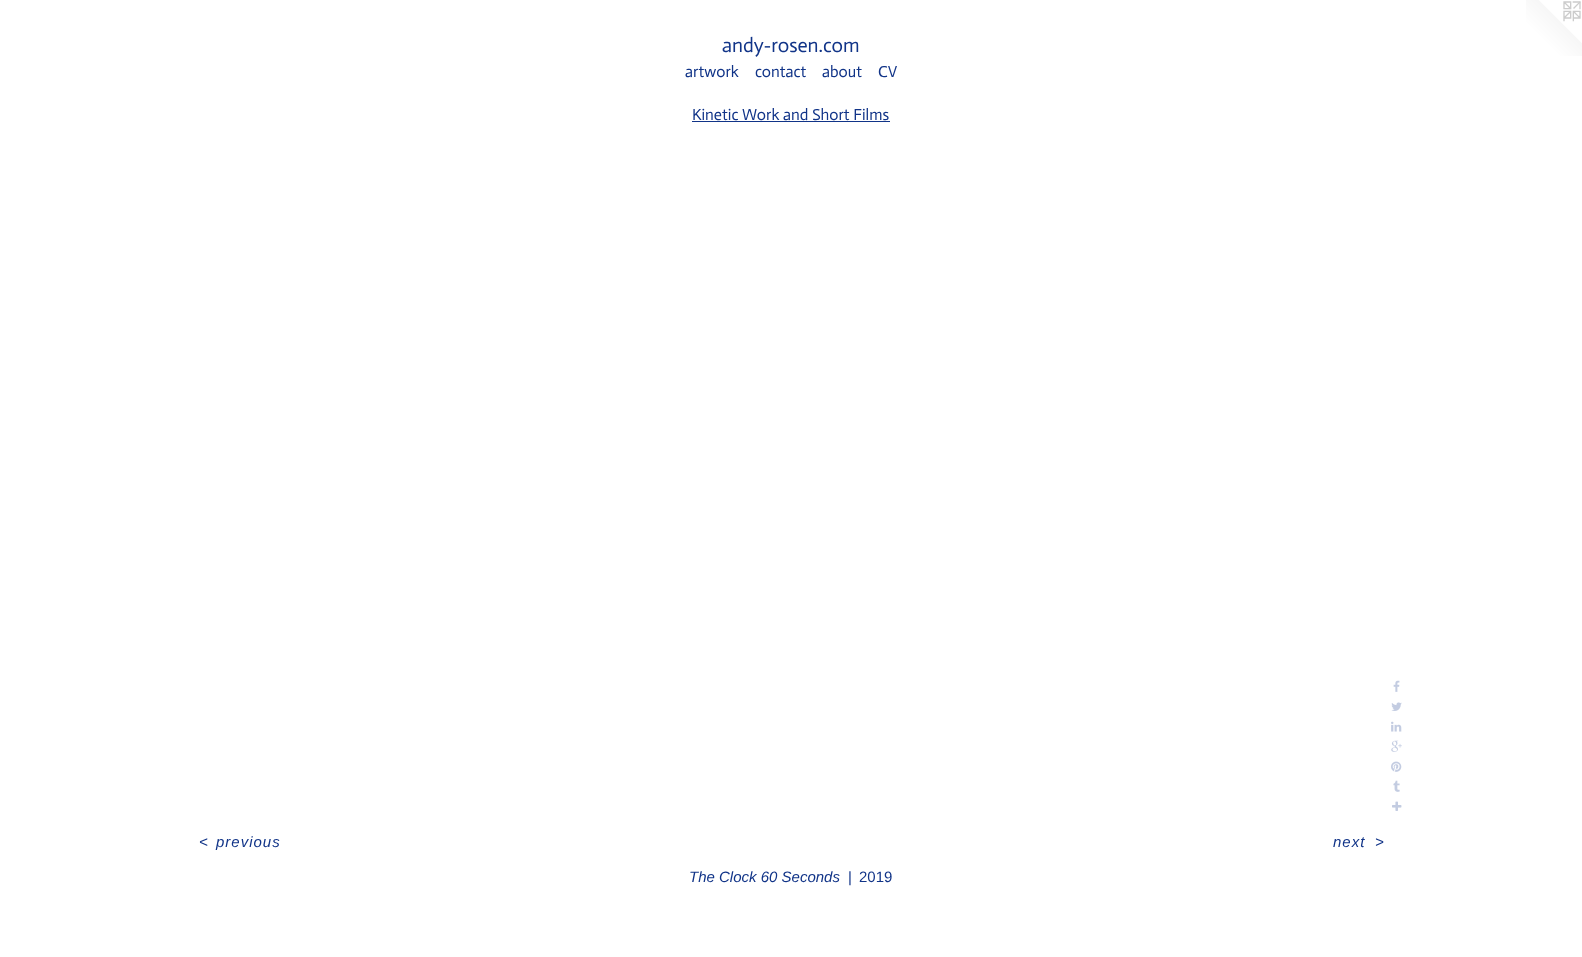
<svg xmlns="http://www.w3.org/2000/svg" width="1582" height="957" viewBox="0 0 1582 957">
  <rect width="100%" height="100%" fill="#fff"/>
  <image x="1526" y="0" width="56" height="56" href="img/1.png"/>
  <path d="M692 121h198v1H692z" fill="#113488"/>
  <image x="1393" y="680" width="7" height="12" href="img/2.png"/>
  <image x="1391" y="702" width="11" height="9" href="img/3.png"/>
  <image x="1391" y="721" width="11" height="11" href="img/4.png"/>
  <image x="1391" y="740" width="11" height="12" href="img/5.png"/>
  <image x="1391" y="761" width="11" height="11" href="img/6.png"/>
  <image x="1393" y="780" width="7" height="12" href="img/7.png"/>
  <image x="1392" y="801" width="10" height="10" href="img/8.png"/>
  <text x="722" y="52" font-family="Actor" font-size="20" fill="#113488">andy-rosen.com</text>
  <g font-family="Actor" font-size="16" fill="#113488">
    <text x="685" y="77">artwork</text>
    <text x="755" y="77">contact</text>
    <text x="822" y="77">about</text>
    <text x="878" y="77">CV</text>
    <text x="692" y="120">Kinetic Work and Short Films</text>
  </g>
  <g font-family="Liberation Sans" font-size="15" font-style="italic" letter-spacing="1" fill="#113488">
    <text x="199" y="847">&lt;</text>
    <text x="216" y="847">previous</text>
    <text x="1333" y="847">next</text>
    <text x="1375" y="847">&gt;</text>
  </g>
  <text x="689" y="882" font-family="Liberation Sans" font-size="15" font-style="italic" fill="#113488">The Clock 60 Seconds</text>
  <g font-family="Liberation Sans" font-size="15" fill="#113488">
    <text x="848" y="882">|</text>
    <text x="859" y="882">2019</text>
  </g>
</svg>
